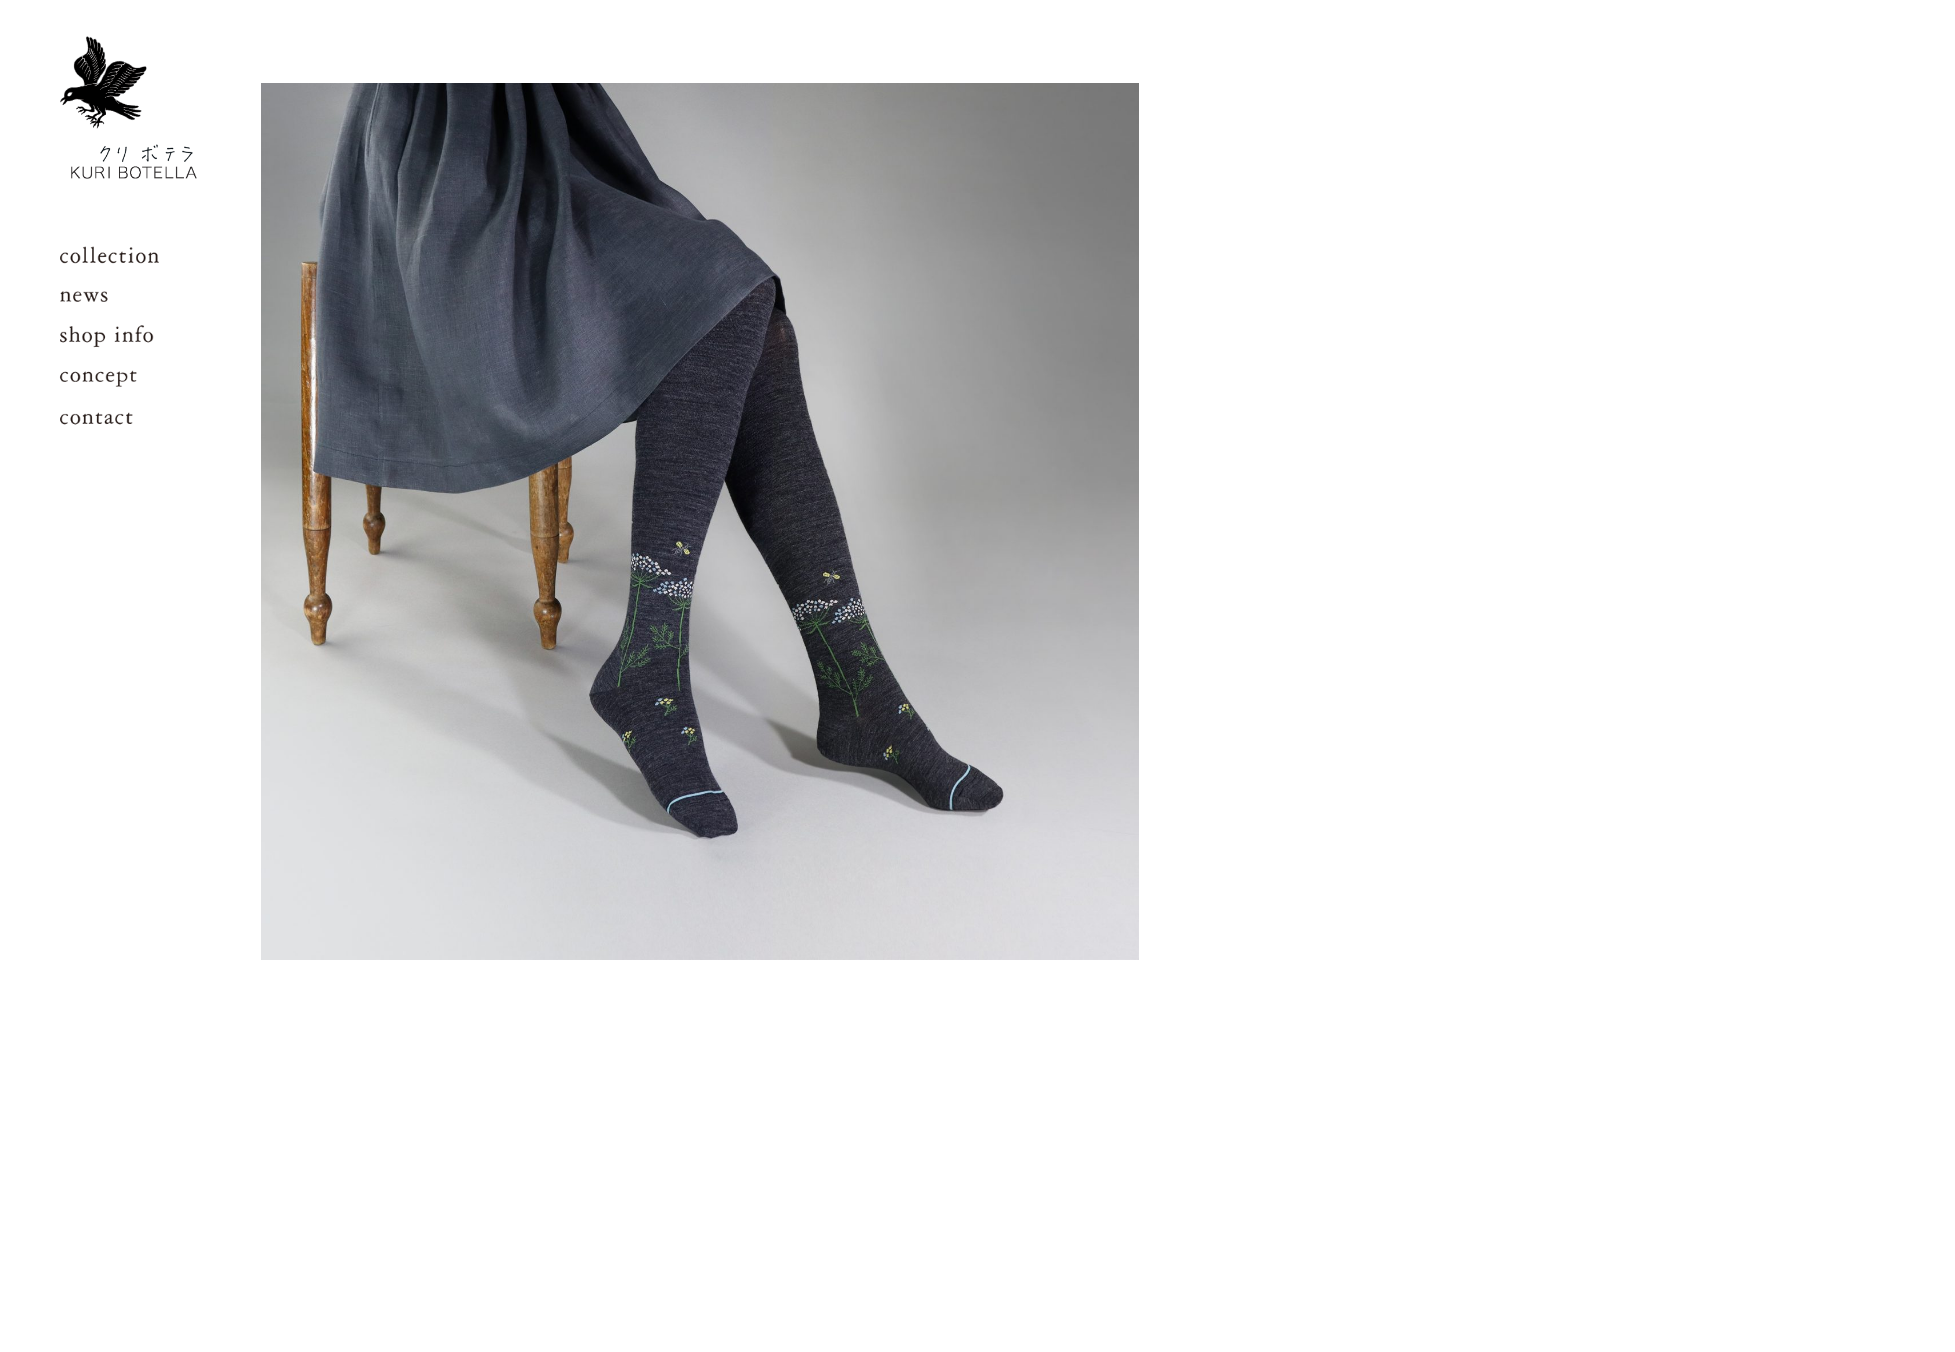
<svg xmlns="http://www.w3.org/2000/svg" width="1955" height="1352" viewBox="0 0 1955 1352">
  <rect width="100%" height="100%" fill="#fff"/>
  <image x="60" y="36" width="137" height="143" href="img/1.png"/>
  <image x="60" y="246" width="99" height="18" href="img/2.png"/>
  <image x="60" y="291" width="48" height="11" href="img/3.png"/>
  <image x="60" y="325" width="94" height="23" href="img/4.png"/>
  <image x="59" y="370" width="78" height="17" href="img/5.png"/>
  <image x="60" y="412" width="73" height="13" href="img/6.png"/>
  <image x="261" y="83" width="878" height="877" href="img/7.png"/>
</svg>
